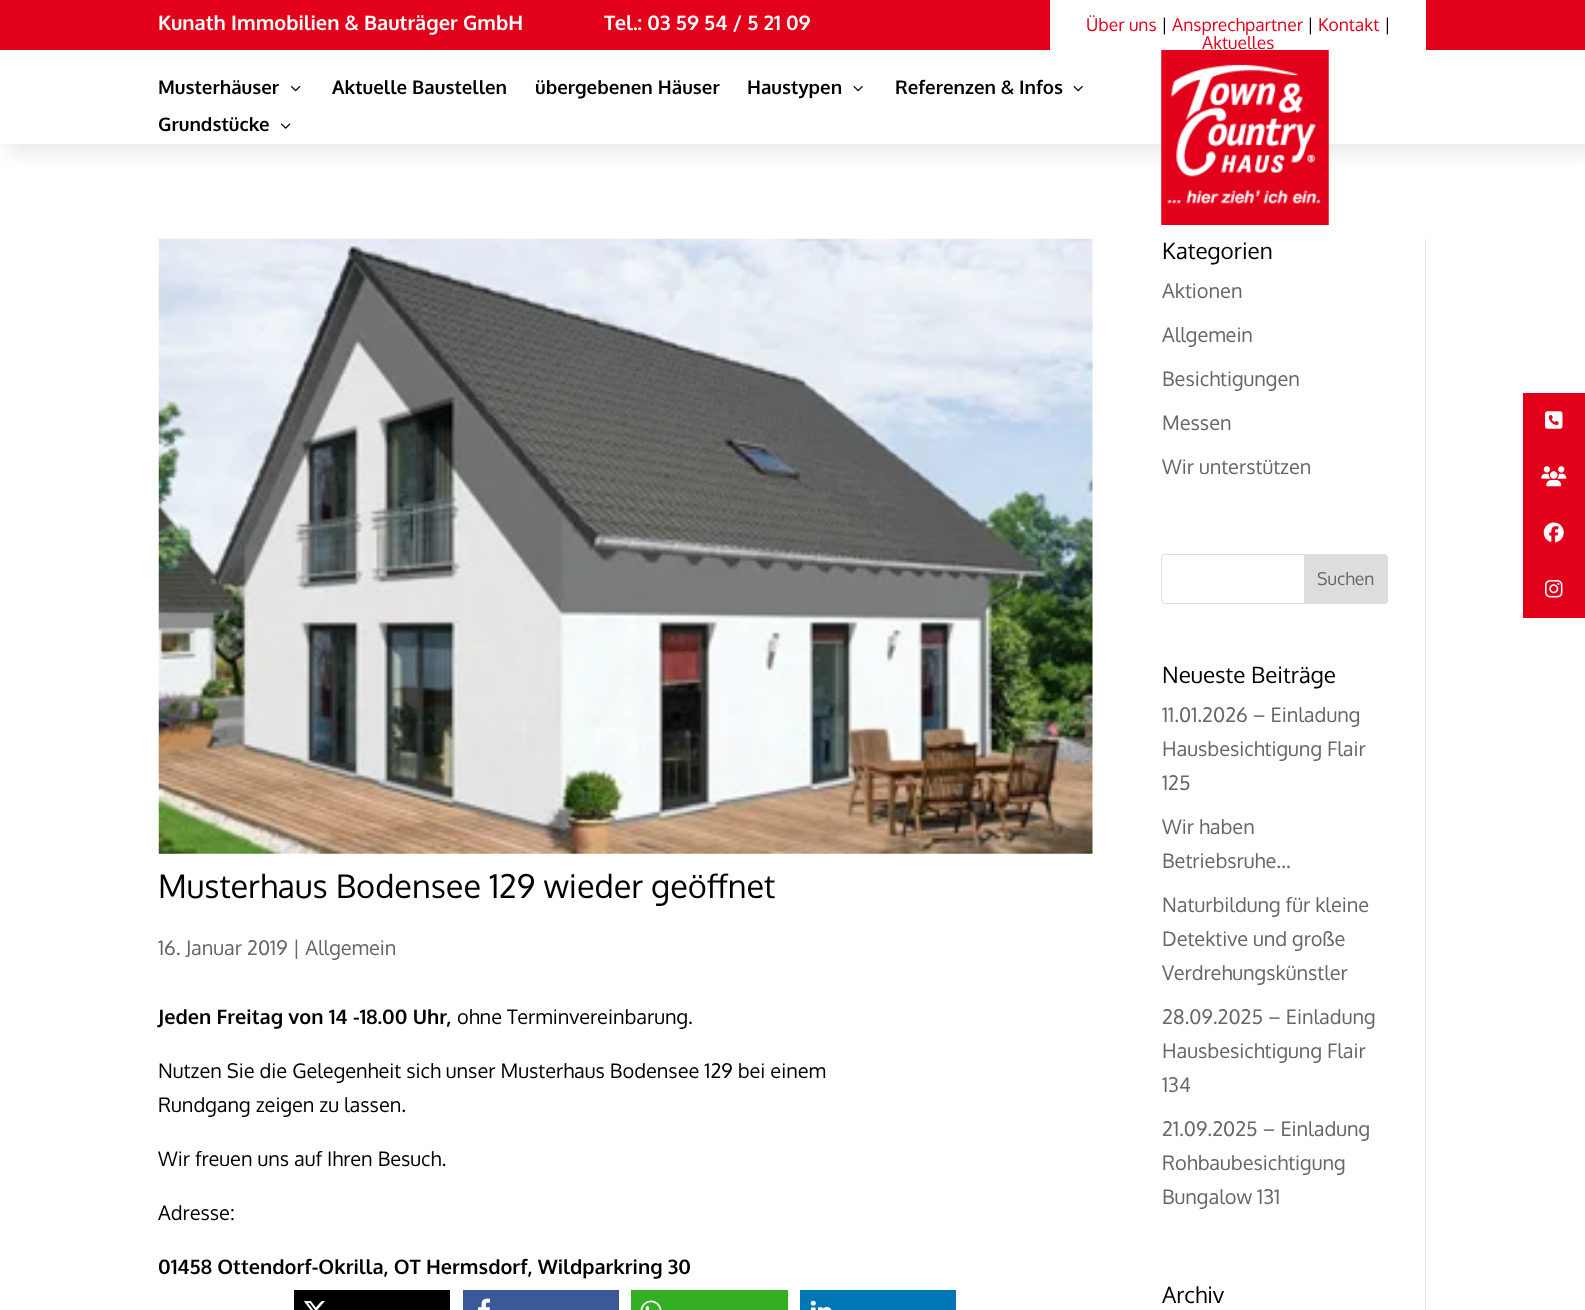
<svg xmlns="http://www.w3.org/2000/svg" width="1585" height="1310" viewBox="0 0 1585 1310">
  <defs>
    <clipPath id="clip1"><path d="M1051 1h374v48H1051z"/></clipPath>
  </defs>
  <rect width="100%" height="100%" fill="#fff"/>
  <path d="M8 58h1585v93H8z" fill="#0000001a" filter="blur(11px)"/>
  <path d="M0 0h1585v50H0z" fill="#e2001a"/>
  <path d="M1050 0h376v50H1050z" fill="#fff"/>
  <path d="M0 50h1585v94H0z" fill="#fff"/>
  <image x="291" y="86" width="10" height="6" href="img/1.png"/>
  <image x="853" y="86" width="10" height="6" href="img/2.png"/>
  <image x="1073" y="86" width="10" height="6" href="img/2.png"/>
  <image x="281" y="123" width="10" height="6" href="img/3.png"/>
  <image x="1161" y="50" width="168" height="175" href="img/4.png"/>
  <image x="158" y="238" width="935" height="616" href="img/5.png"/>
  <path d="M294 1290h156v20H294z" fill="#000"/>
  <image x="303" y="1301" width="22" height="9" href="img/6.png"/>
  <path d="M463 1290h156v20H463z" fill="#3b5998"/>
  <image x="478" y="1298" width="13" height="12" href="img/7.png"/>
  <path d="M631 1290h157v20H631z" fill="#34af23"/>
  <image x="640" y="1300" width="22" height="10" href="img/8.png"/>
  <path d="M800 1290h156v20H800z" fill="#0077b5"/>
  <image x="810" y="1300" width="22" height="10" href="img/9.png"/>
  <path d="M1425 239h1v1071H1425z" fill="#e6e6e6"/>
  <rect x="1161.5" y="554.5" width="226" height="49" rx="3.5" fill="none" stroke="#ddd"/>
  <path d="M1304.5 554.5H1384C1386 554.5 1387.5 556 1387.5 558V600C1387.5 602 1386 603.5 1384 603.5H1304.5Z" fill="#ddd" stroke="#ddd"/>
  <path d="M1523 393h62v225H1523z" fill="#e2001a"/>
  <image x="1545" y="411" width="18" height="18" href="img/10.png"/>
  <image x="1541" y="466" width="26" height="21" href="img/11.png"/>
  <image x="1543" y="522" width="21" height="21" href="img/12.png"/>
  <image x="1545" y="580" width="18" height="18" href="img/13.png"/>
  <g font-family="Oxygen" font-size="20" font-weight="bold" fill="#fff">
    <text x="158" y="30">Kunath Immobilien &amp; Bauträger GmbH</text>
    <text x="604" y="30">Tel.: 03 59 54 / 5 21 09</text>
  </g>
  <text x="1086" y="31" font-family="Oxygen" font-size="17.5" fill="#e2001a">Über uns</text>
  <text x="1161" y="31" font-family="Oxygen" font-size="17.5" fill="#000">|</text>
  <text x="1172" y="31" font-family="Oxygen" font-size="17.5" fill="#e2001a">Ansprechpartner</text>
  <text x="1307" y="31" font-family="Oxygen" font-size="17.5" fill="#000">|</text>
  <text x="1318" y="31" font-family="Oxygen" font-size="17.5" fill="#e2001a">Kontakt</text>
  <text x="1384" y="31" font-family="Oxygen" font-size="17.5" fill="#000">|</text>
  <g clip-path="url(#clip1)">
    <text x="1202" y="49" font-family="Oxygen" font-size="17.5" fill="#e2001a">Aktuelles</text>
  </g>
  <g font-family="Oxygen" font-size="18.75" font-weight="bold" fill="#000">
    <text x="158" y="94">Musterhäuser</text>
    <text x="332" y="94">Aktuelle Baustellen</text>
    <text x="535" y="94">übergebenen Häuser</text>
    <text x="747" y="94">Haustypen</text>
    <text x="895" y="94">Referenzen &amp; Infos</text>
    <text x="158" y="131">Grundstücke</text>
  </g>
  <text x="158" y="898" font-family="Oxygen" font-size="32.5" fill="#000">Musterhaus Bodensee 129 wieder geöffnet</text>
  <text x="158" y="955" font-family="Oxygen" font-size="20" fill="#666">16. Januar 2019 | Allgemein</text>
  <text x="158" y="1024" font-family="Oxygen" font-size="20" font-weight="bold" fill="#000">Jeden Freitag von 14 -18.00 Uhr,</text>
  <g font-family="Oxygen" font-size="20" fill="#000">
    <text x="457" y="1024">ohne Terminvereinbarung.</text>
    <text x="158" y="1078">Nutzen Sie die Gelegenheit sich unser Musterhaus Bodensee 129 bei einem</text>
    <text x="158" y="1112">Rundgang zeigen zu lassen.</text>
    <text x="158" y="1166">Wir freuen uns auf Ihren Besuch.</text>
    <text x="158" y="1220">Adresse:</text>
  </g>
  <text x="158" y="1274" font-family="Oxygen" font-size="20" font-weight="bold" fill="#000">01458 Ottendorf-Okrilla, OT Hermsdorf, Wildparkring 30</text>
  <text x="1162" y="259" font-family="Oxygen" font-size="22.5" fill="#000">Kategorien</text>
  <g font-family="Oxygen" font-size="20" fill="#666">
    <text x="1162" y="298">Aktionen</text>
    <text x="1162" y="342">Allgemein</text>
    <text x="1162" y="386">Besichtigungen</text>
    <text x="1162" y="430">Messen</text>
    <text x="1162" y="474">Wir unterstützen</text>
  </g>
  <text x="1317" y="585" font-family="Oxygen" font-size="17.5" fill="#666">Suchen</text>
  <text x="1162" y="683" font-family="Oxygen" font-size="22.5" fill="#000">Neueste Beiträge</text>
  <g font-family="Oxygen" font-size="20" fill="#666">
    <text x="1162" y="722">11.01.2026 – Einladung</text>
    <text x="1162" y="756">Hausbesichtigung Flair</text>
    <text x="1162" y="790">125</text>
    <text x="1162" y="834">Wir haben</text>
    <text x="1162" y="868">Betriebsruhe…</text>
    <text x="1162" y="912">Naturbildung für kleine</text>
    <text x="1162" y="946">Detektive und große</text>
    <text x="1162" y="980">Verdrehungskünstler</text>
    <text x="1162" y="1024">28.09.2025 – Einladung</text>
    <text x="1162" y="1058">Hausbesichtigung Flair</text>
    <text x="1162" y="1092">134</text>
    <text x="1162" y="1136">21.09.2025 – Einladung</text>
    <text x="1162" y="1170">Rohbaubesichtigung</text>
    <text x="1162" y="1204">Bungalow 131</text>
  </g>
  <text x="1162" y="1303" font-family="Oxygen" font-size="22.5" fill="#000">Archiv</text>
</svg>
